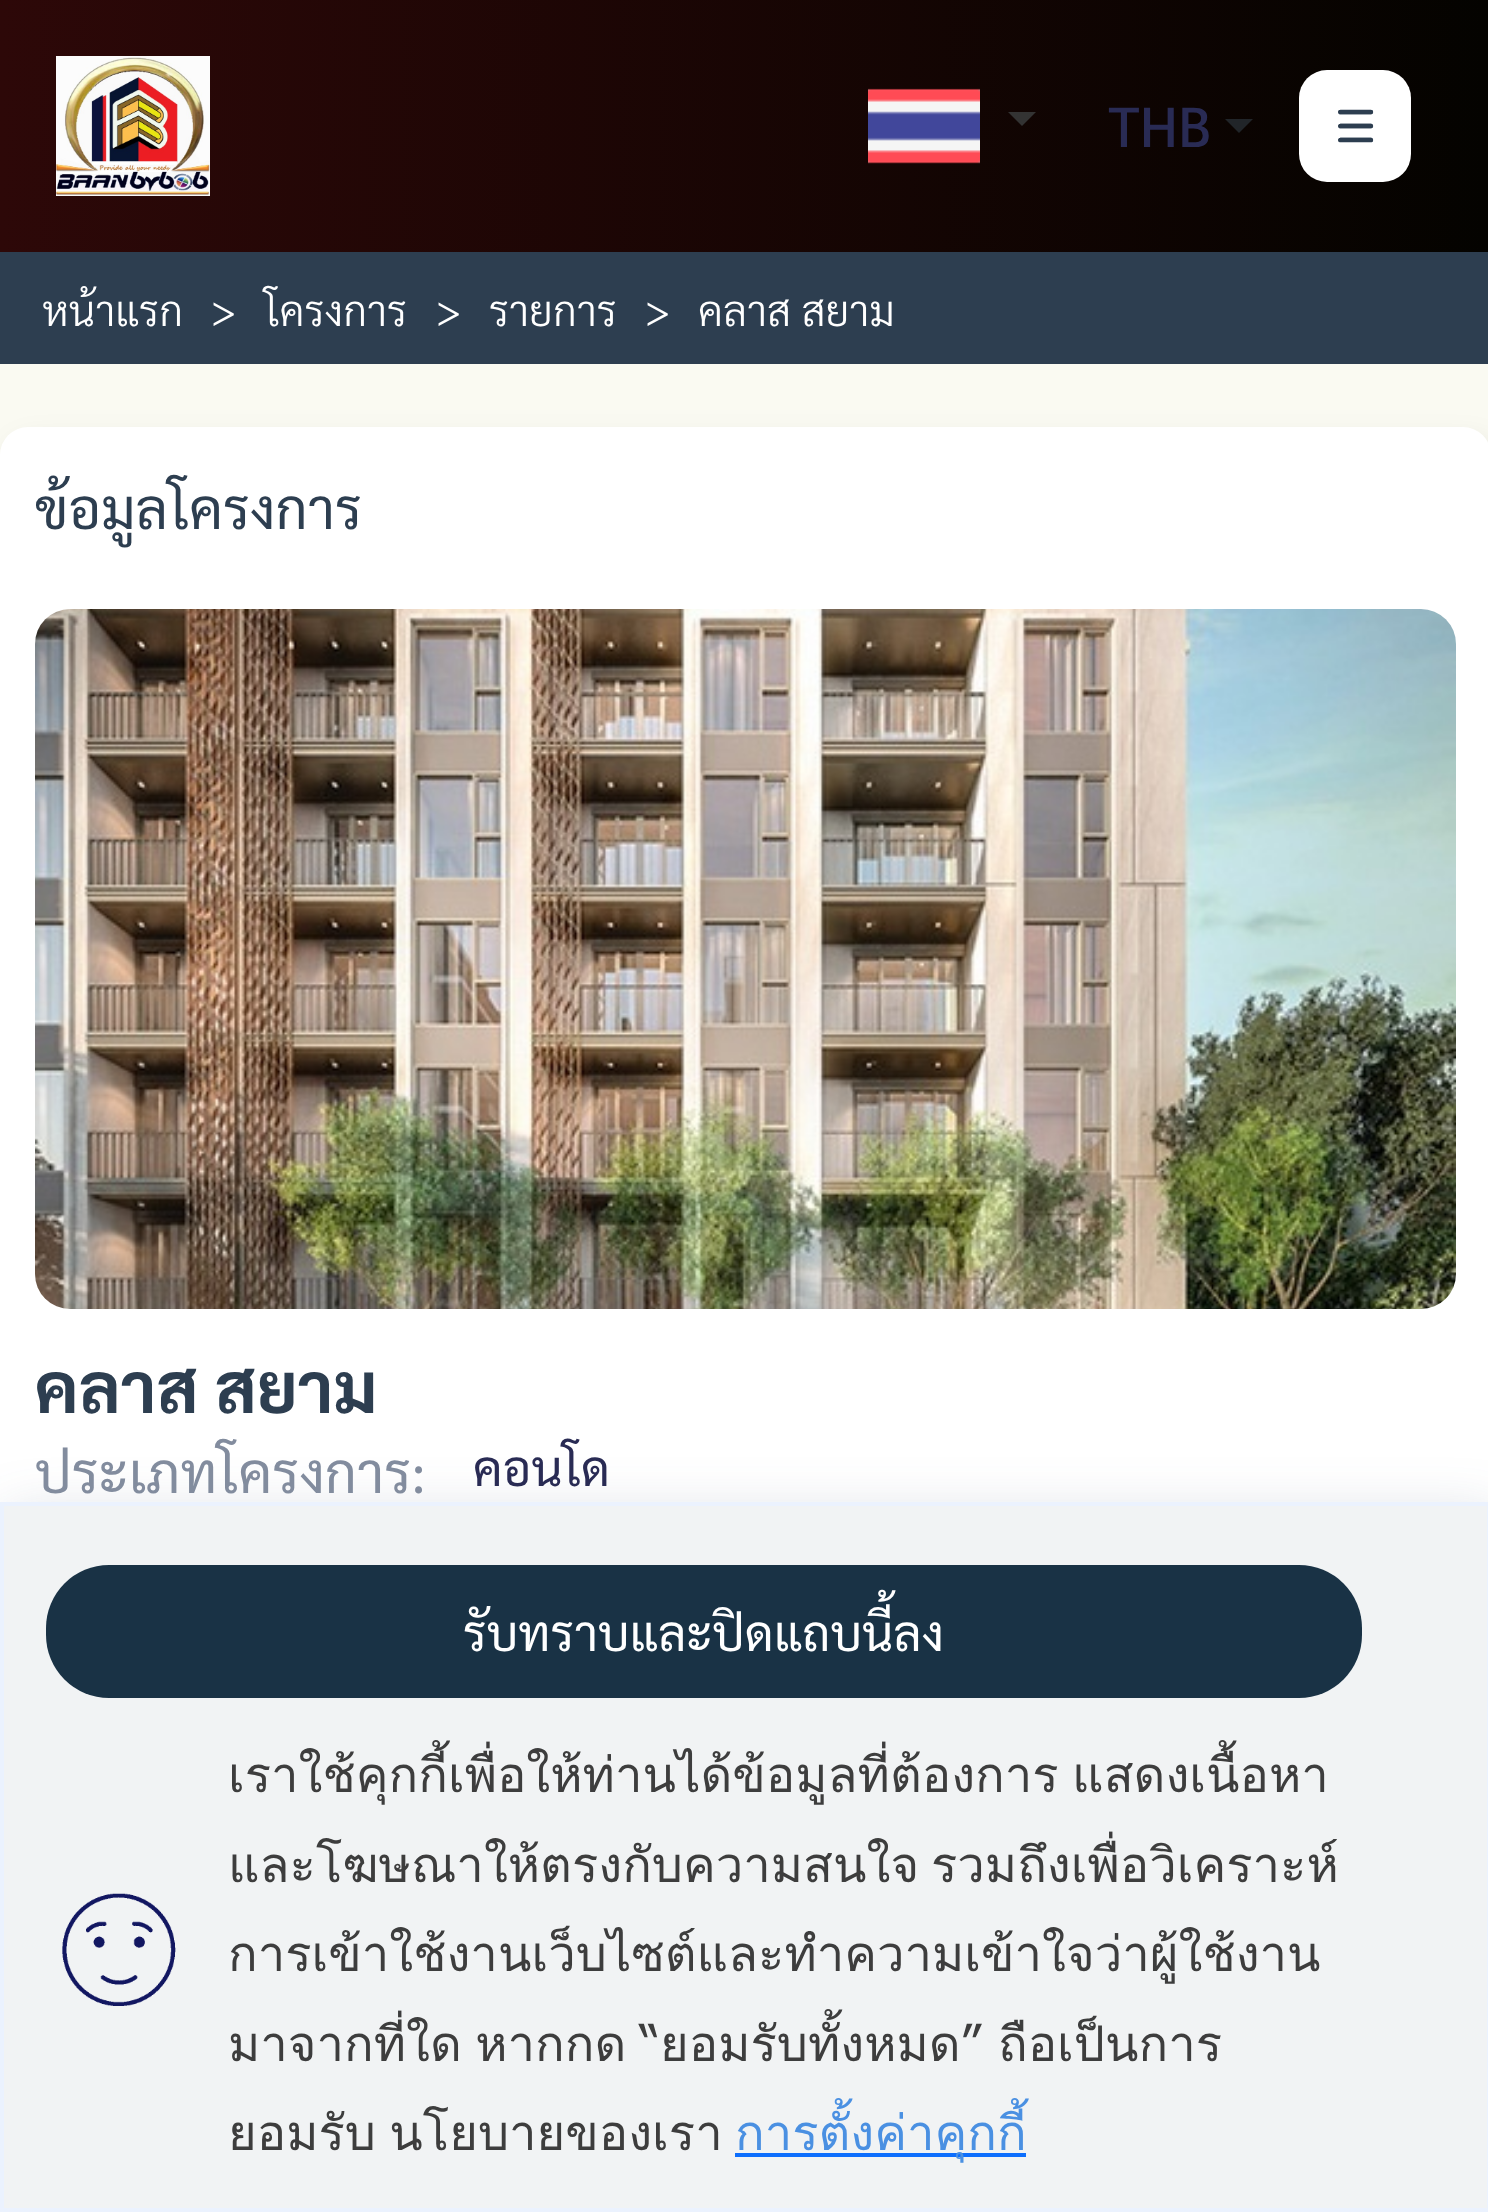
<svg xmlns="http://www.w3.org/2000/svg" width="1488" height="2212" viewBox="0 0 1488 2212">
  <defs>
    <linearGradient id="g1" gradientUnits="userSpaceOnUse" x1="0" y1="126" x2="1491" y2="126"><stop offset="0" stop-color="#2d0808"/><stop offset="1" stop-color="#040300"/></linearGradient>
  </defs>
  <rect width="100%" height="100%" fill="#fafaf2"/>
  <path d="M0 0h1488v252H0z" fill="url(#g1)"/>
  <image x="56" y="56" width="154" height="140" href="img/1.png"/>
  <image x="868" y="88" width="112" height="76" href="img/2.png"/>
  <path d="M1008 112H1036L1022 126Z" fill="#333"/>
  <path d="M1225 119H1253L1239 133Z" fill="#212529"/>
  <rect x="1299" y="70" width="112" height="112" rx="28" fill="#fff"/>
  <image x="1338" y="109" width="36" height="34" href="img/3.png"/>
  <path d="M0 252h1488v112H0z" fill="#2d3e50"/>
  <rect x="7" y="441" width="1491" height="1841" rx="28" fill="#0a0a101a" filter="blur(14px)"/>
  <rect y="427" width="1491" height="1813" rx="28" fill="#fff"/>
  <image x="35" y="609" width="1421" height="700" href="img/4.png"/>
  <path d="M7 1516h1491v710H7z" fill="#384b6c33" filter="blur(28px)"/>
  <path d="M2 1504h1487v706H2z" fill="#f1f3f4" stroke="#ebf2fe" stroke-width="4"/>
  <rect x="46" y="1565" width="1316" height="133" rx="63" fill="#193245"/>
  <image x="62" y="1893" width="114" height="113" href="img/5.png"/>
  <path d="M735 2153h291v4H735z" fill="#0d6efd"/>
  <text x="1108" y="147" font-family="Sarabun" font-size="56" font-weight="500" fill="#292b54">THB</text>
  <g font-family="Sarabun" font-size="42" font-weight="300" fill="#fff">
    <text x="42" y="326">หน้าแรก</text>
    <text x="211" y="326">&gt;</text>
    <text x="264" y="326">โครงการ</text>
    <text x="436" y="326">&gt;</text>
    <text x="489" y="326">รายการ</text>
    <text x="645" y="326">&gt;</text>
    <text x="698" y="326">คลาส สยาม</text>
  </g>
  <text x="35" y="529" font-family="Sarabun" font-size="56" fill="#2d3e50">ข้อมูลโครงการ</text>
  <text x="35" y="1413" font-family="Sarabun" font-size="70" font-weight="bold" fill="#2d3e50">คลาส สยาม</text>
  <text x="35" y="1493" font-family="Sarabun" font-size="56" fill="#828c9e">ประเภทโครงการ:</text>
  <text x="473" y="1486" font-family="Sarabun" font-size="49" fill="#292b54">คอนโด</text>
  <text x="463" y="1651" font-family="Sarabun" font-size="49" fill="#fff">รับทราบและปิดแถบนี้ลง</text>
  <g font-family="Loma" font-size="49" fill="#3d3d3d">
    <text x="228" y="1792" word-spacing="-3">เราใช้คุกกี้เพื่อให้ท่านได้ข้อมูลที่ต้องการ แสดงเนื้อหา</text>
    <text x="228" y="1882">และโฆษณาให้ตรงกับความสนใจ</text>
    <text x="931" y="1882">รวมถึงเพื่อวิเคราะห์</text>
    <text x="228" y="1971">การเข้าใช้งานเว็บไซต์และทำความเข้าใจว่าผู้ใช้งาน</text>
    <text x="228" y="2061" word-spacing="-3">มาจากที่ใด หากกด “ยอมรับทั้งหมด” ถือเป็นการ</text>
    <text x="228" y="2150" word-spacing="-3">ยอมรับ นโยบายของเรา</text>
  </g>
  <text x="735" y="2150" font-family="Loma" font-size="49" fill="#4a90e2">การตั้งค่าคุกกี้</text>
</svg>
